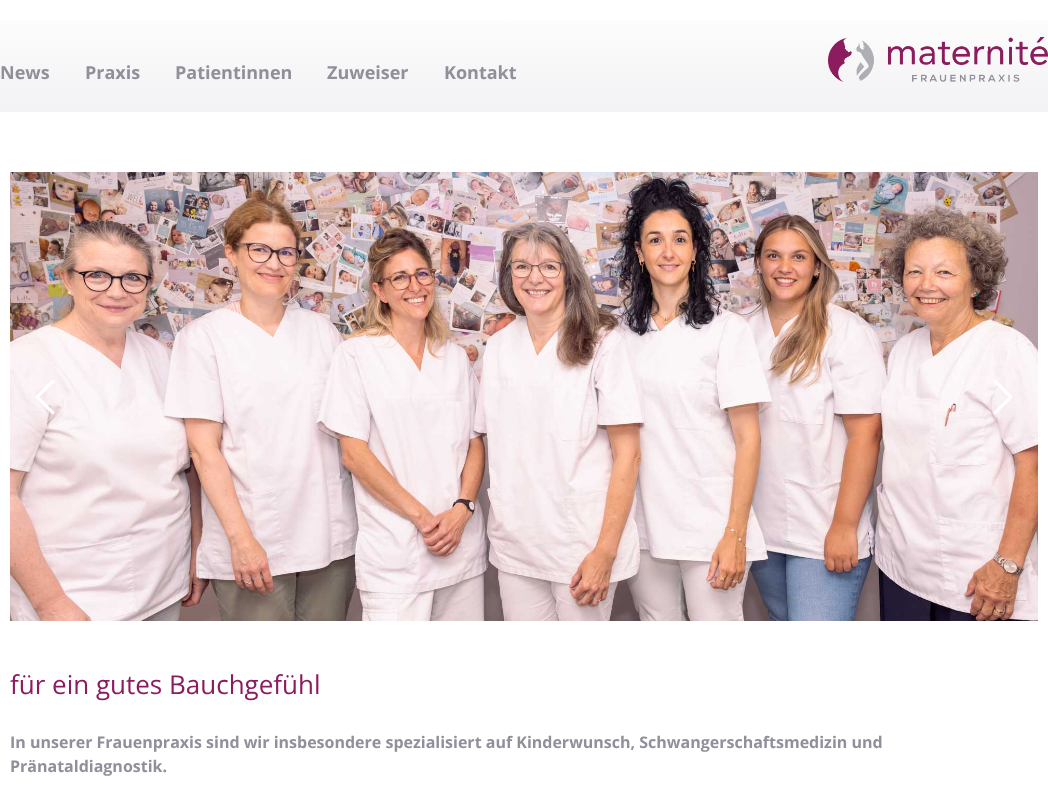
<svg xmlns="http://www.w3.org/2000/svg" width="1048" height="806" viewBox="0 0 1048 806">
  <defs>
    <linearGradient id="g1" gradientUnits="userSpaceOnUse" x1="524" y1="0" x2="524" y2="112"><stop offset="0" stop-color="#fff"/><stop offset="1" stop-color="#f2f1f3"/></linearGradient>
  </defs>
  <rect width="100%" height="100%" fill="#fff"/>
  <path d="M0 20h1048v92H0z" fill="url(#g1)"/>
  <image x="828" y="37" width="220" height="45" href="img/1.png"/>
  <image x="10" y="172" width="1028" height="449" href="img/2.png"/>
  <image x="36" y="380" width="19" height="35" href="img/3.png"/>
  <image x="993" y="380" width="19" height="34" href="img/4.png"/>
  <g font-family="Open Sans" font-size="18" font-weight="bold" fill="#908f9a">
    <text x="0" y="79">News</text>
    <text x="85" y="79">Praxis</text>
    <text x="175" y="79">Patientinnen</text>
    <text x="327" y="79">Zuweiser</text>
    <text x="444" y="79">Kontakt</text>
  </g>
  <text x="10" y="694" font-family="Open Sans" font-size="26" fill="#8c1c5f">für ein gutes Bauchgefühl</text>
  <g font-family="Open Sans" font-size="16" font-weight="bold" fill="#908f9a">
    <text x="10" y="748">In unserer Frauenpraxis sind wir insbesondere spezialisiert auf Kinderwunsch, Schwangerschaftsmedizin und</text>
    <text x="10" y="772">Pränataldiagnostik.</text>
  </g>
</svg>
